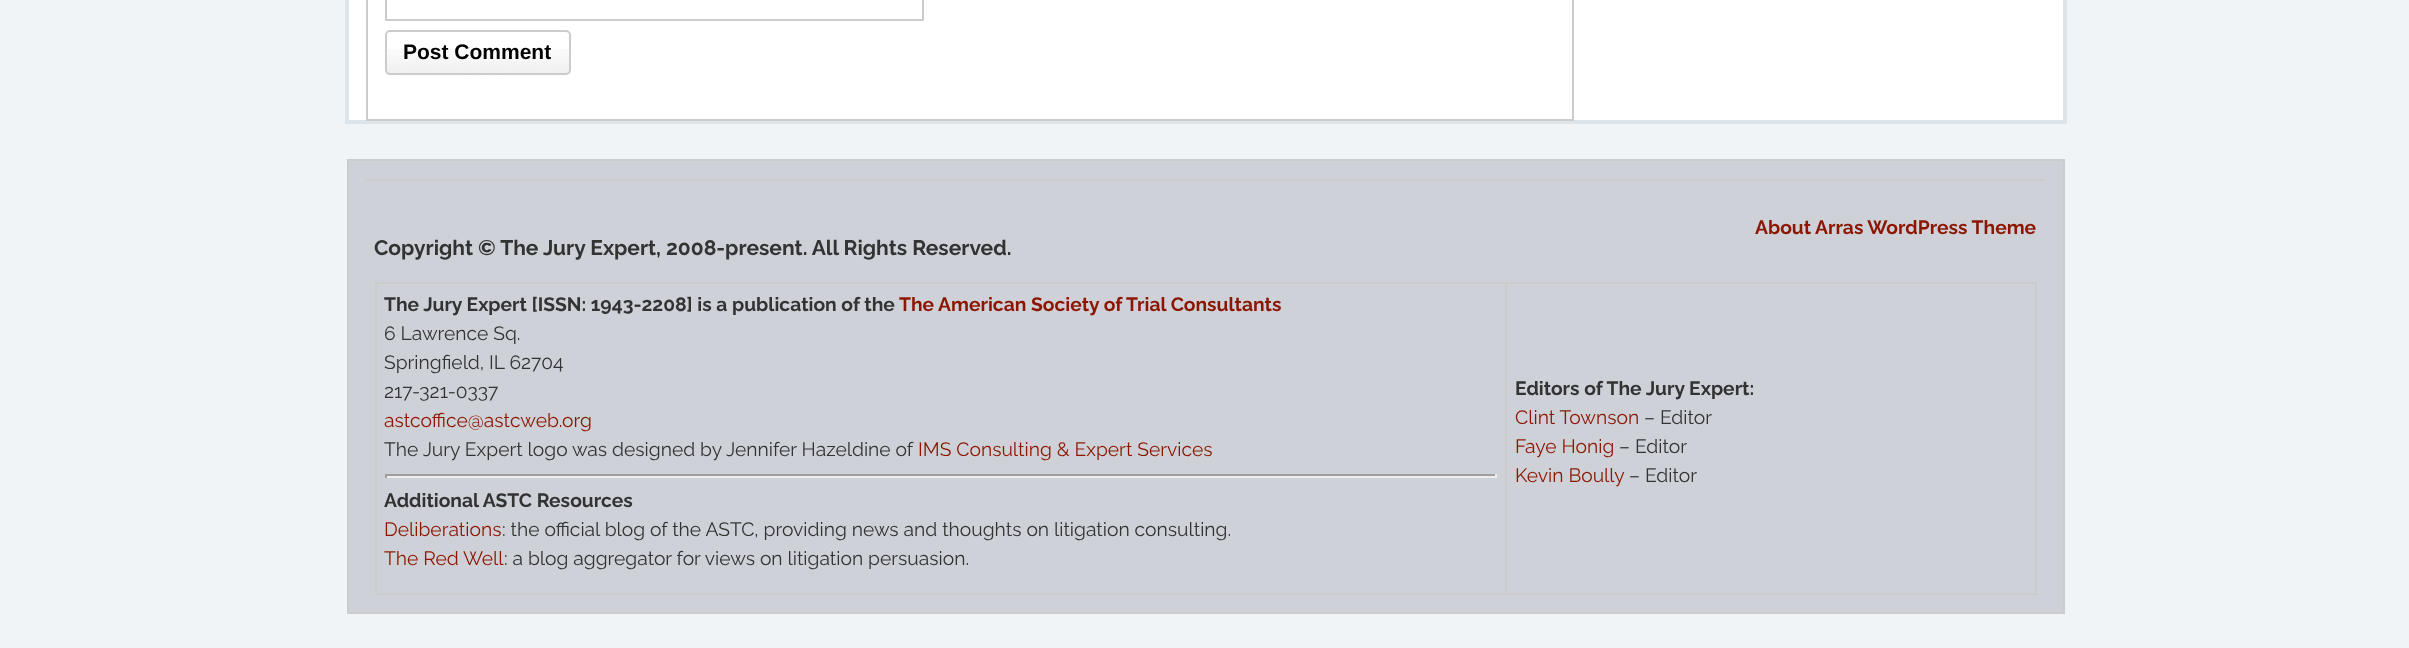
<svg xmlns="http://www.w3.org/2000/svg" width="2409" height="648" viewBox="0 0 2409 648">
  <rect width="100%" height="100%" fill="#f1f4f7"/>
  <path d="M347 -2h1718v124H347z" fill="#fff" stroke="#dee5ea" stroke-width="4"/>
  <path d="M1572 0h2v121H1572z" fill="#ccc"/>
  <path d="M366 119h1207v2H366z" fill="#ccc"/>
  <path d="M366 0h2v121H366z" fill="#ccc"/>
  <path d="M386 -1h537v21H386z" fill="none" stroke="#ccc" stroke-width="2"/>
  <image x="385" y="49" width="185" height="27" href="img/1.png"/>
  <rect x="386" y="31" width="184" height="43" rx="4" fill="none" stroke="#ccc" stroke-width="2"/>
  <path d="M348 160h1716v453H348z" fill="#ced2d8" stroke="#ccc" stroke-width="2"/>
  <path d="M366 179h1680v2H366z" fill="#ccc"/>
  <path d="M375 282h1662v2H375z" fill="#ccc"/>
  <path d="M2035 282h2v313H2035z" fill="#ccc"/>
  <path d="M375 593h1662v2H375z" fill="#ccc"/>
  <path d="M375 282h2v313H375z" fill="#ccc"/>
  <path d="M385 474h1111v2H385z" fill="#9f9f9f"/>
  <path d="M1495 474h2v4H1495z" fill="#eee"/>
  <path d="M385 476h1111v2H385z" fill="#eee"/>
  <path d="M385 474h2v4H385z" fill="#9f9f9f"/>
  <path d="M1505 282h2v313H1505z" fill="#ccc"/>
  <text x="403" y="59" font-family="Liberation Sans" font-size="21" font-weight="bold" fill="#000">Post Comment</text>
  <text x="1755" y="234" font-family="Raleway" font-size="19.25" font-weight="bold" fill="#8c1600">About Arras WordPress Theme</text>
  <text x="374" y="255" font-family="Raleway" font-size="21" font-weight="bold" fill="#333">Copyright © The Jury Expert, 2008-present. All Rights Reserved.</text>
  <text x="384" y="311" font-family="Raleway" font-size="19.25" font-weight="bold" fill="#333">The Jury Expert [ISSN: 1943-2208] is a publication of the</text>
  <text x="899" y="311" font-family="Raleway" font-size="19.25" font-weight="bold" fill="#8c1600">The American Society of Trial Consultants</text>
  <g font-family="Raleway" font-size="19.25" fill="#333">
    <text x="384" y="340">6 Lawrence Sq.</text>
    <text x="384" y="369">Springfield, IL 62704</text>
    <text x="384" y="398">217-321-0337</text>
  </g>
  <text x="384" y="427" font-family="Raleway" font-size="19.25" fill="#8c1600">astcoffice@astcweb.org</text>
  <text x="384" y="456" font-family="Raleway" font-size="19.25" fill="#333">The Jury Expert logo was designed by Jennifer Hazeldine of</text>
  <text x="918" y="456" font-family="Raleway" font-size="19.25" fill="#8c1600">IMS Consulting &amp; Expert Services</text>
  <text x="384" y="507" font-family="Raleway" font-size="19.25" font-weight="bold" fill="#333">Additional ASTC Resources</text>
  <text x="384" y="536" font-family="Raleway" font-size="19.25" fill="#8c1600">Deliberations</text>
  <text x="502" y="536" font-family="Raleway" font-size="19.25" fill="#333">: the official blog of the ASTC, providing news and thoughts on litigation consulting.</text>
  <text x="384" y="565" font-family="Raleway" font-size="19.25" fill="#8c1600">The Red Well</text>
  <text x="504" y="565" font-family="Raleway" font-size="19.25" fill="#333">: a blog aggregator for views on litigation persuasion.</text>
  <text x="1515" y="395" font-family="Raleway" font-size="19.25" font-weight="bold" fill="#333">Editors of The Jury Expert:</text>
  <text x="1515" y="424" font-family="Raleway" font-size="19.25" fill="#8c1600">Clint Townson</text>
  <text x="1644" y="424" font-family="Raleway" font-size="19.25" fill="#333">– Editor</text>
  <text x="1515" y="453" font-family="Raleway" font-size="19.25" fill="#8c1600">Faye Honig</text>
  <text x="1619" y="453" font-family="Raleway" font-size="19.25" fill="#333">– Editor</text>
  <text x="1515" y="482" font-family="Raleway" font-size="19.25" fill="#8c1600">Kevin Boully</text>
  <text x="1629" y="482" font-family="Raleway" font-size="19.25" fill="#333">– Editor</text>
</svg>
